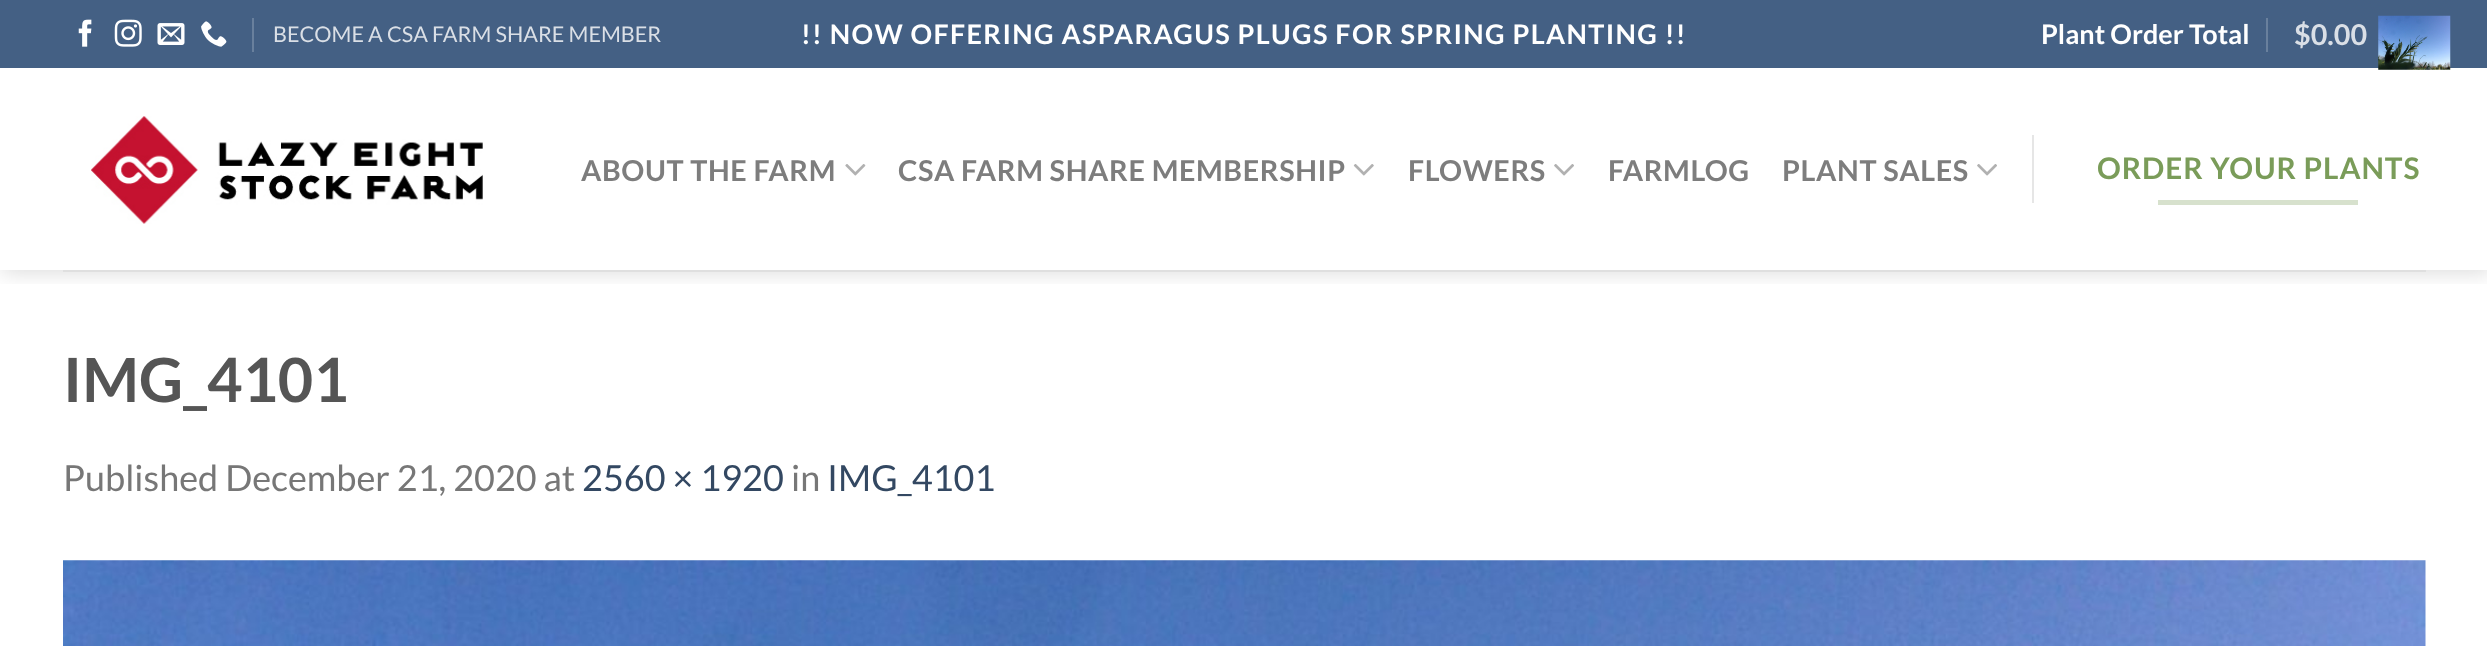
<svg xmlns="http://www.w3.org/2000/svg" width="2487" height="646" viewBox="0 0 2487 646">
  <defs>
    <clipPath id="clip1"><path d="M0 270h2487v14H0z"/></clipPath>
  </defs>
  <rect width="100%" height="100%" fill="#fff"/>
  <g clip-path="url(#clip1)">
    <path d="M2 2h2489v270H2z" fill="#00000026" filter="blur(11px)"/>
  </g>
  <path d="M0 0h2487v68H0z" fill="#446084"/>
  <image x="78" y="19" width="14" height="28" href="img/1.png"/>
  <image x="114" y="19" width="28" height="28" href="img/2.png"/>
  <image x="157" y="23" width="28" height="22" href="img/3.png"/>
  <image x="201" y="21" width="26" height="26" href="img/4.png"/>
  <path d="M252 18h2v34H252z" fill="#69809d"/>
  <path d="M2266 18h2v34H2266z" fill="#69809d"/>
  <image x="2378" y="15" width="73" height="55" href="img/5.png"/>
  <image x="91" y="116" width="392" height="108" href="img/6.png"/>
  <image x="845" y="164" width="21" height="12" href="img/7.png"/>
  <image x="1353" y="164" width="21" height="12" href="img/8.png"/>
  <image x="1554" y="164" width="20" height="12" href="img/9.png"/>
  <image x="1977" y="164" width="20" height="12" href="img/9.png"/>
  <path d="M2032 135h2v68H2032z" fill="#e6e6e6"/>
  <path d="M2158 200h200v5H2158z" fill="#d7e1cd"/>
  <path d="M63 270h2363v2H63z" fill="#dfdfdf"/>
  <image x="63" y="560" width="2363" height="86" href="img/10.png"/>
  <text x="273" y="42" font-family="Lato" font-size="21.6" fill="#dadfe6">BECOME A CSA FARM SHARE MEMBER</text>
  <text x="801" y="44" font-family="Lato" font-size="27" font-weight="bold" letter-spacing="1.35" fill="#fff">!! NOW OFFERING ASPARAGUS PLUGS FOR SPRING PLANTING !!</text>
  <text x="2041" y="44" font-family="Lato" font-size="27" font-weight="bold" fill="#fff">Plant Order Total</text>
  <text x="2294" y="45" font-family="Lato" font-size="28.75" font-weight="bold" fill="#dadfe6">$0.00</text>
  <g font-family="Lato" font-size="28.75" font-weight="bold" letter-spacing="0.6" fill="#7d7d7d">
    <text x="581" y="181">ABOUT THE FARM</text>
    <text x="898" y="181">CSA FARM SHARE MEMBERSHIP</text>
    <text x="1408" y="181">FLOWERS</text>
    <text x="1608" y="181">FARMLOG</text>
    <text x="1782" y="181">PLANT SALES</text>
  </g>
  <text x="2097" y="179" font-family="Lato" font-size="29.75" font-weight="bold" letter-spacing="0.9" fill="#7a9c59">ORDER YOUR PLANTS</text>
  <text x="63" y="402" font-family="Lato" font-size="61" font-weight="bold" fill="#555">IMG_4101</text>
  <text x="63" y="491" font-family="Lato" font-size="36" fill="#777">Published December 21, 2020 at</text>
  <text x="582" y="491" font-family="Lato" font-size="36" fill="#334862">2560 × 1920</text>
  <text x="791" y="491" font-family="Lato" font-size="36" fill="#777">in</text>
  <text x="827" y="491" font-family="Lato" font-size="36" fill="#334862">IMG_4101</text>
</svg>
